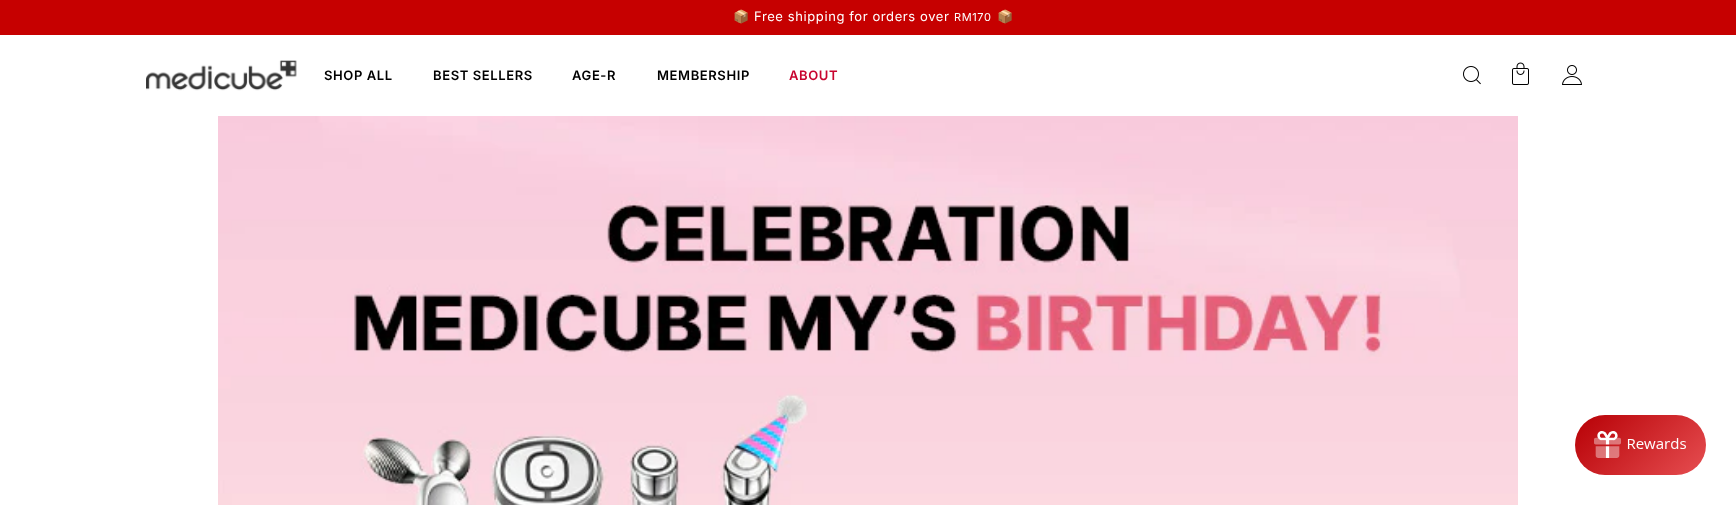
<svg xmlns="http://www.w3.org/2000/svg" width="1736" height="505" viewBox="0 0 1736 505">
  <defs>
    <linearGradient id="g1" gradientUnits="userSpaceOnUse" x1="1593" y1="397" x2="1688" y2="493"><stop offset="0" stop-color="#b70005"/><stop offset="1" stop-color="#e64e51"/></linearGradient>
  </defs>
  <rect width="100%" height="100%" fill="#fff"/>
  <path d="M0 0h1736v35H0z" fill="#c60000"/>
  <image x="146" y="60" width="151" height="31" href="img/1.png"/>
  <image x="1463" y="66" width="18" height="19" href="img/2.png"/>
  <image x="1512" y="62" width="17" height="23" href="img/3.png"/>
  <image x="1562" y="65" width="20" height="20" href="img/4.png"/>
  <image x="218" y="116" width="1300" height="389" href="img/5.png"/>
  <rect x="1575" y="415" width="131" height="60" rx="30" fill="url(#g1)"/>
  <image x="1594" y="431" width="92" height="27" href="img/6.png"/>
  <text x="733" y="21" font-family="Noto Color Emoji" font-size="13" letter-spacing="0.6" fill="#fff">📦</text>
  <text x="754" y="21" font-family="Inter" font-size="13" letter-spacing="0.6" fill="#fff">Free shipping for orders over</text>
  <text x="954" y="21" font-family="Inter" font-size="11" letter-spacing="0.6" fill="#fff">RM170</text>
  <text x="997" y="21" font-family="Noto Color Emoji" font-size="13" letter-spacing="0.6" fill="#fff">📦</text>
  <g font-family="Inter" font-size="13" font-weight="600" letter-spacing="0.6" fill="#000">
    <text x="324" y="80">SHOP ALL</text>
    <text x="433" y="80">BEST SELLERS</text>
    <text x="572" y="80">AGE-R</text>
    <text x="657" y="80">MEMBERSHIP</text>
  </g>
  <text x="789" y="80" font-family="Inter" font-size="13" font-weight="600" letter-spacing="0.6" fill="#c8042f">ABOUT</text>
</svg>
